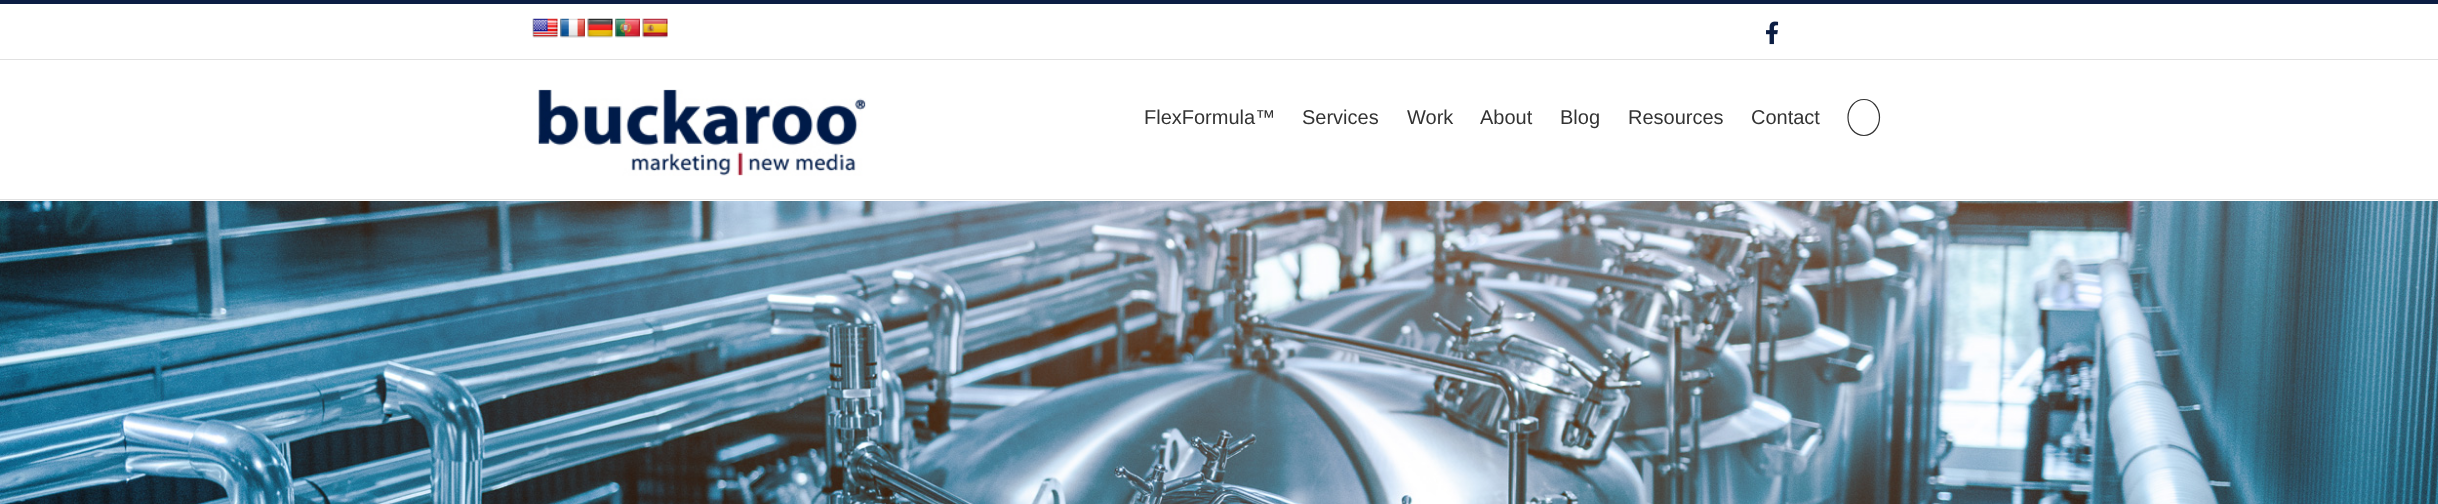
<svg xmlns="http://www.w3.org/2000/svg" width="2438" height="504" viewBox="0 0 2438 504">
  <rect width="100%" height="100%" fill="#fff"/>
  <path d="M0 0h2438v4H0z" fill="#0b1d43"/>
  <path d="M0 59h2438v1H0z" fill="#e1e1e1"/>
  <image x="532" y="18" width="26" height="20" href="img/1.png"/>
  <image x="560" y="18" width="25" height="20" href="img/2.png"/>
  <image x="587" y="18" width="26" height="20" href="img/3.png"/>
  <image x="615" y="18" width="25" height="20" href="img/4.png"/>
  <image x="642" y="18" width="26" height="20" href="img/5.png"/>
  <image x="1766" y="21" width="13" height="24" href="img/6.png"/>
  <path d="M0 199h2438v1H0z" fill="#e1e1e1"/>
  <image x="538" y="89" width="328" height="87" href="img/7.png"/>
  <path d="M1864 99.5C1872.5 99.5 1879.5 107.5 1879.5 117.5C1879.5 127.5 1872.5 135.5 1864 135.5C1855 135.5 1848 127.5 1848 117.5C1848 107.5 1855 99.5 1864 99.5Z" fill="none" stroke="#333" stroke-width="1.2"/>
  <image x="0" y="201" width="2438" height="303" href="img/8.png"/>
  <g font-family="Liberation Sans" font-size="20" fill="#333">
    <text x="1144" y="124">FlexFormula™</text>
    <text x="1302" y="124">Services</text>
    <text x="1407" y="124">Work</text>
    <text x="1480" y="124">About</text>
    <text x="1560" y="124">Blog</text>
    <text x="1628" y="124">Resources</text>
    <text x="1751" y="124">Contact</text>
  </g>
</svg>
